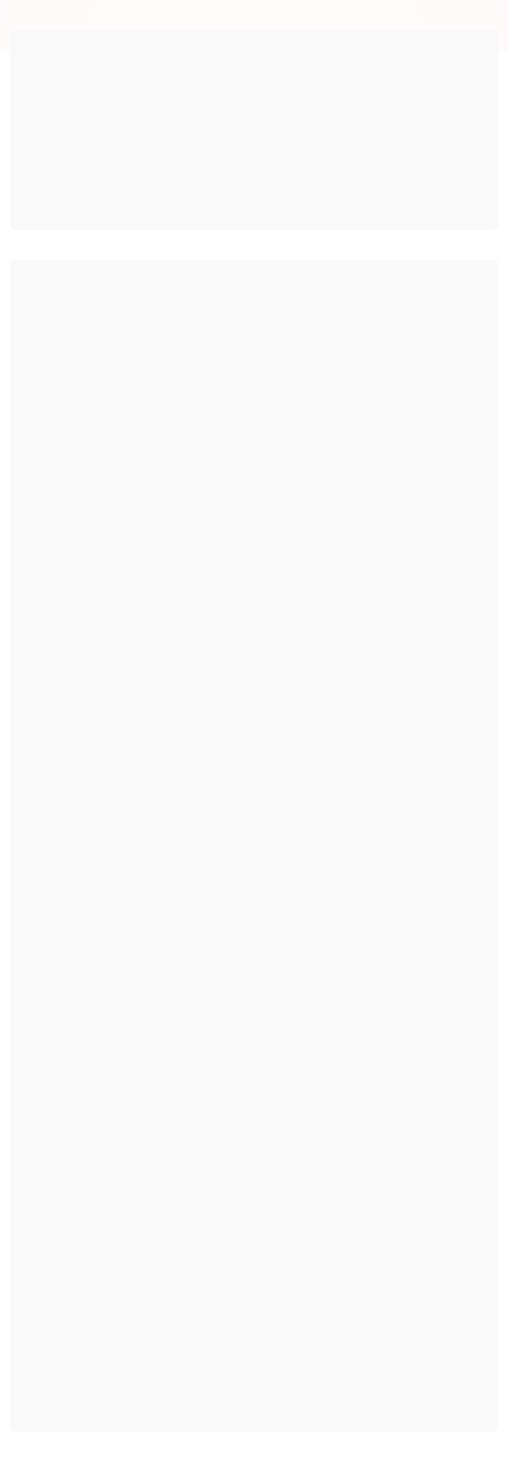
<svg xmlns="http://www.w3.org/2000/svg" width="508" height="1462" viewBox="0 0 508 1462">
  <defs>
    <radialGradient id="g1" gradientUnits="userSpaceOnUse" cx="0" cy="0" r="1" gradientTransform="matrix(359 0 0 1034 254 731)"><stop offset="0" stop-color="#fff" stop-opacity="0.99"/><stop offset="1" stop-color="#fff" stop-opacity="0.98"/></radialGradient>
  </defs>
  <rect width="100%" height="100%" fill="#fff"/>
  <path d="M10.5 -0.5h487v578H10.5z" fill="none" stroke="#cdcfd5"/>
  <path d="M0 0h508v50H0z" fill="#ed1c24"/>
  <path d="M0 50h508v1H0z" fill="#26334d"/>
  <path d="M0 0h508v578H0z" fill="url(#g1)"/>
  <rect x="10" y="30" width="488" height="200" rx="5" fill="#f9f9f9"/>
  <rect x="10" y="260" width="488" height="1172" rx="5" fill="#f9f9f9"/>
</svg>
